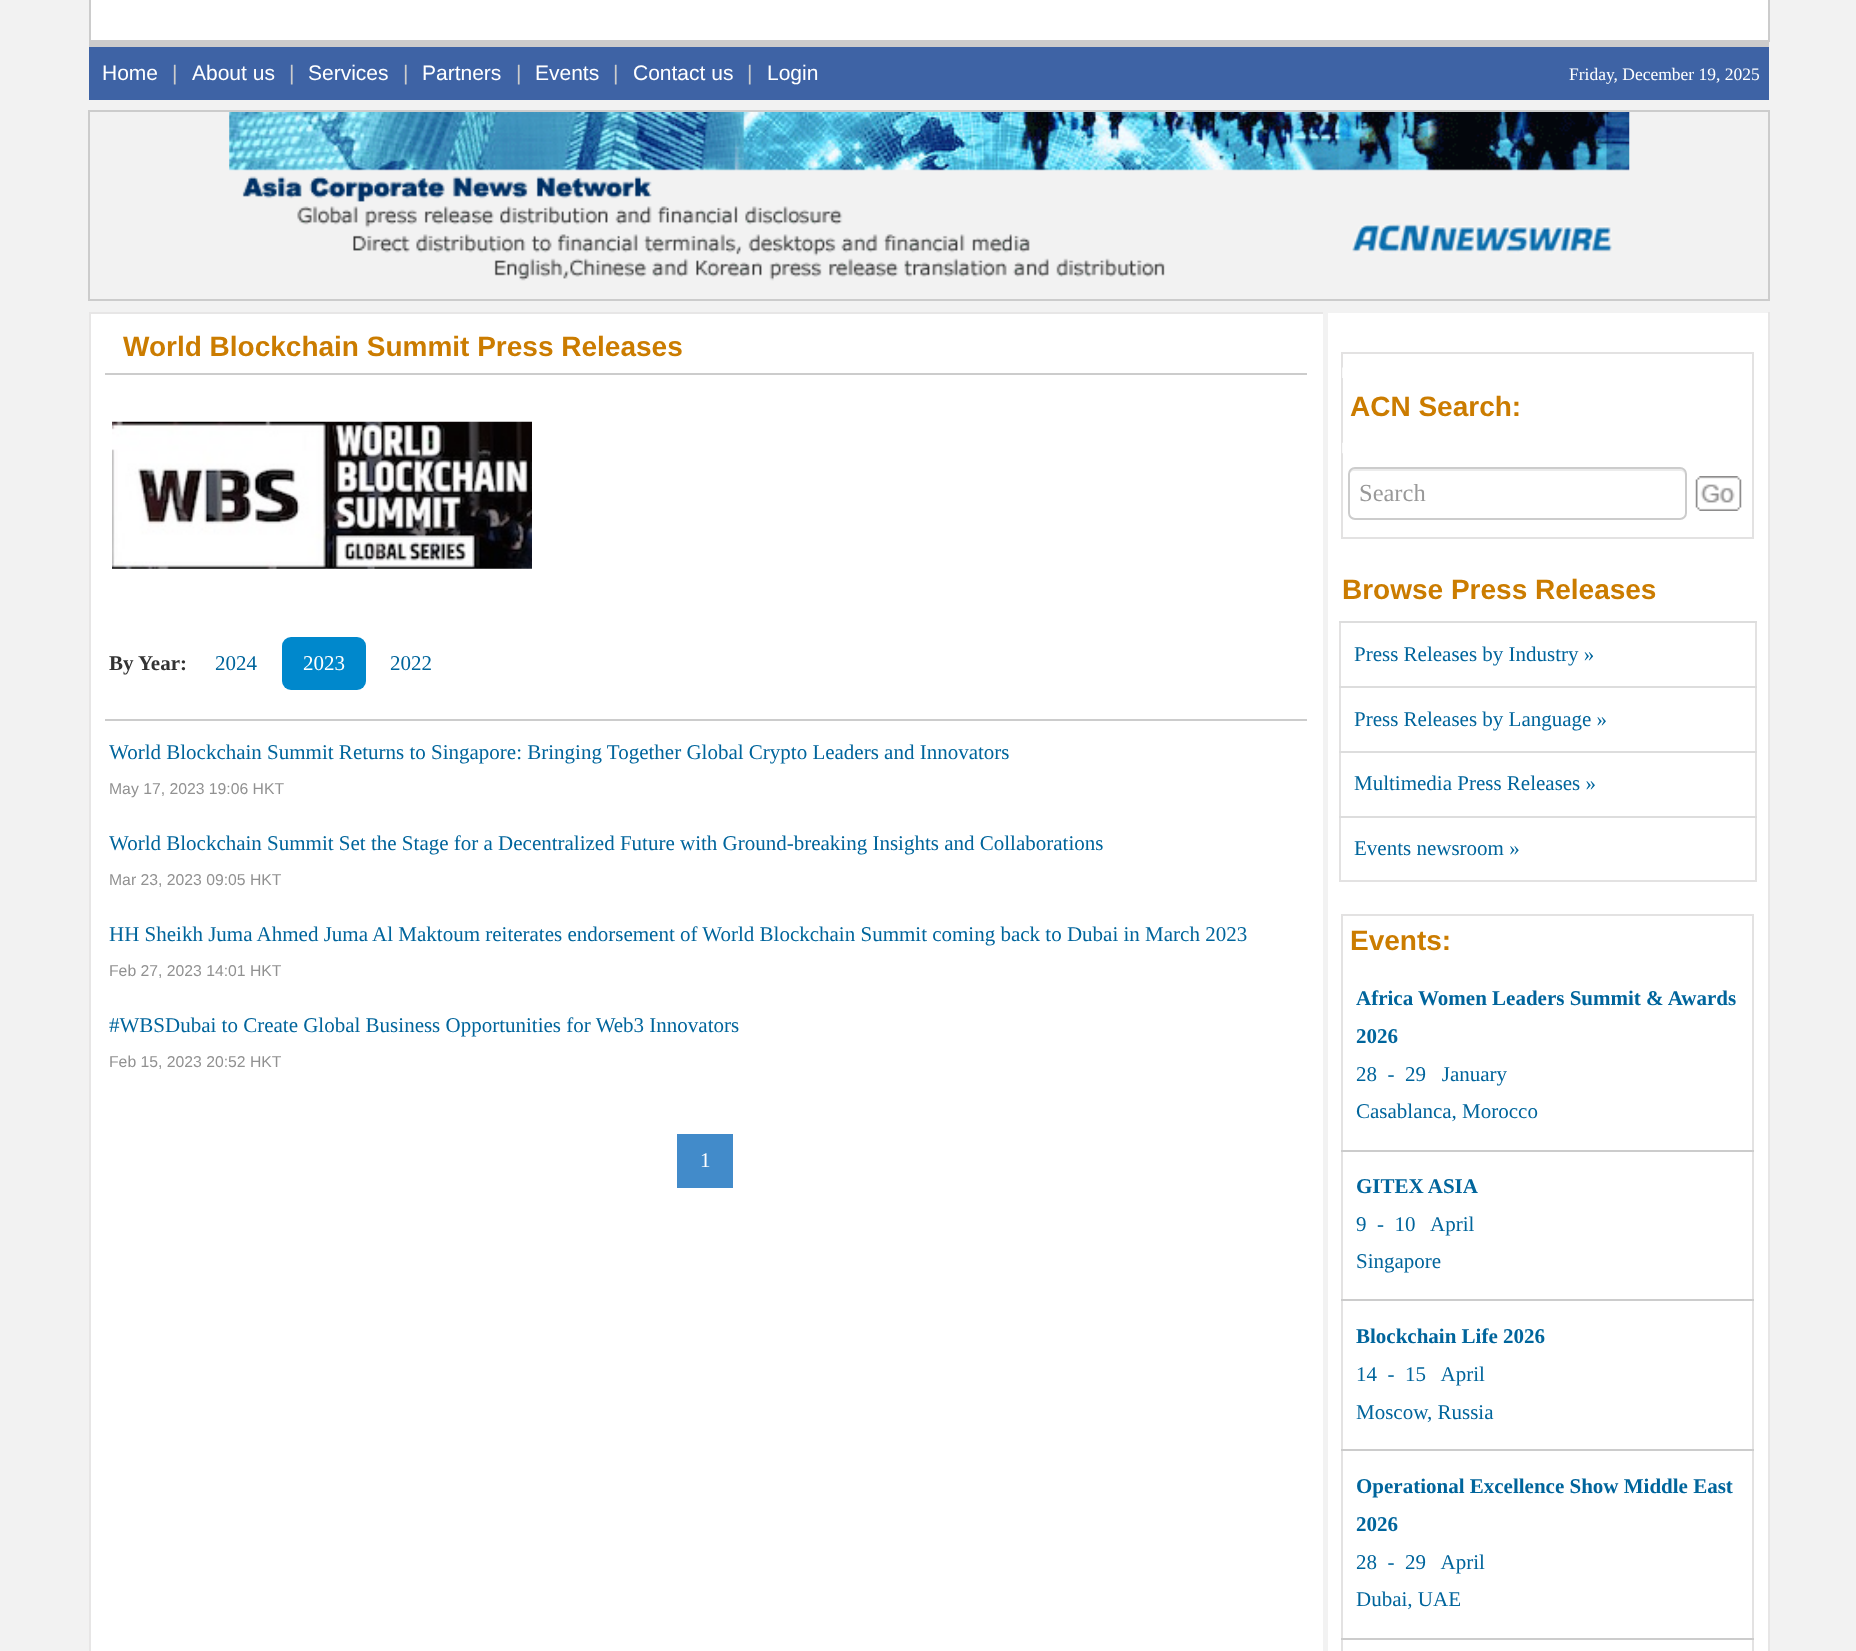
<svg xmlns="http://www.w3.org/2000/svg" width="1856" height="1651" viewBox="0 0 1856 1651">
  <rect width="100%" height="100%" fill="#f2f2f2"/>
  <path d="M91 0h1677v40H91z" fill="#fff"/>
  <path d="M1768 0h2v42H1768z" fill="#ccc"/>
  <path d="M89 40h1680v7H89z" fill="#ccc"/>
  <path d="M89 0h2v42H89z" fill="#ccc"/>
  <path d="M89 47h1680v53H89z" fill="#3e63a5"/>
  <path d="M88 110h1681v2H88z" fill="#ccc"/>
  <path d="M1768 110h2v191H1768z" fill="#ccc"/>
  <path d="M88 299h1681v2H88z" fill="#ccc"/>
  <path d="M88 110h2v191H88z" fill="#ccc"/>
  <image x="229" y="112" width="1401" height="169" href="img/1.png"/>
  <path d="M91 314h1232v1337H91z" fill="#fff"/>
  <path d="M89 312h1238v2H89z" fill="#e7e6e6"/>
  <path d="M89 312h2v1339H89z" fill="#e7e6e6"/>
  <path d="M105 373h1202v2H105z" fill="#ccc"/>
  <image x="112" y="421" width="420" height="148" href="img/2.png"/>
  <path d="M105 719h1202v2H105z" fill="#ccc"/>
  <rect x="282" y="637" width="84" height="53" rx="9" fill="#08c"/>
  <path d="M677 1134h56v54H677z" fill="#428bca"/>
  <path d="M1328 313h440v1338H1328z" fill="#fff"/>
  <path d="M1768 312h2v1339H1768z" fill="#e7e6e6"/>
  <path d="M1323 310h4v4H1323z" fill="#f2f2f2"/>
  <path d="M1341 352h413v2H1341z" fill="#e3e2e2"/>
  <path d="M1752 352h2v187H1752z" fill="#e3e2e2"/>
  <path d="M1341 537h413v2H1341z" fill="#e3e2e2"/>
  <path d="M1341 352h2v187H1341z" fill="#e3e2e2"/>
  <image x="1342" y="367" width="1" height="11" href="img/3.png"/>
  <image x="1342" y="442" width="1" height="12" href="img/4.png"/>
  <path d="M1354 471H1680C1683 471 1685 473 1685 476V474C1685 471 1683 469 1680 469H1354C1351 469 1349 471 1349 474V476C1349 473 1352 471 1354 471Z" fill="#ececec"/>
  <rect x="1349" y="468" width="337" height="51" rx="6" fill="none" stroke="#ccc" stroke-width="2"/>
  <image x="1695" y="476" width="47" height="35" href="img/5.png"/>
  <path d="M1755 621h2v261H1755z" fill="#e3e2e2"/>
  <path d="M1339 880h418v2H1339z" fill="#e3e2e2"/>
  <path d="M1339 621h2v261H1339z" fill="#e3e2e2"/>
  <path d="M1339 621h418v2H1339z" fill="#ddd"/>
  <path d="M1339 686h418v2H1339z" fill="#ddd"/>
  <path d="M1339 751h418v2H1339z" fill="#ddd"/>
  <path d="M1339 816h418v2H1339z" fill="#ddd"/>
  <path d="M1341 914h413v2H1341z" fill="#e3e2e2"/>
  <path d="M1752 914h2v737H1752z" fill="#e3e2e2"/>
  <path d="M1341 914h2v737H1341z" fill="#e3e2e2"/>
  <path d="M1341 1150h413v2H1341z" fill="#ccc"/>
  <path d="M1341 1299h413v2H1341z" fill="#ccc"/>
  <path d="M1341 1449h413v2H1341z" fill="#ccc"/>
  <path d="M1341 1638h413v2H1341z" fill="#ccc"/>
  <text x="102" y="80" font-family="Liberation Sans" font-size="21" fill="#fff">Home</text>
  <text x="172" y="80" font-family="Liberation Sans" font-size="21" fill="#ccc">|</text>
  <text x="192" y="80" font-family="Liberation Sans" font-size="21" fill="#fff">About us</text>
  <text x="289" y="80" font-family="Liberation Sans" font-size="21" fill="#ccc">|</text>
  <text x="308" y="80" font-family="Liberation Sans" font-size="21" fill="#fff">Services</text>
  <text x="403" y="80" font-family="Liberation Sans" font-size="21" fill="#ccc">|</text>
  <text x="422" y="80" font-family="Liberation Sans" font-size="21" fill="#fff">Partners</text>
  <text x="516" y="80" font-family="Liberation Sans" font-size="21" fill="#ccc">|</text>
  <text x="535" y="80" font-family="Liberation Sans" font-size="21" fill="#fff">Events</text>
  <text x="613" y="80" font-family="Liberation Sans" font-size="21" fill="#ccc">|</text>
  <text x="633" y="80" font-family="Liberation Sans" font-size="21" fill="#fff">Contact us</text>
  <text x="747" y="80" font-family="Liberation Sans" font-size="21" fill="#ccc">|</text>
  <text x="767" y="80" font-family="Liberation Sans" font-size="21" fill="#fff">Login</text>
  <text x="1569" y="80" font-family="Liberation Serif" font-size="17.5" fill="#fff">Friday, December 19, 2025</text>
  <text x="123" y="356" font-family="Liberation Sans" font-size="28" font-weight="bold" fill="#cb7c00">World Blockchain Summit Press Releases</text>
  <text x="109" y="670" font-family="Liberation Serif" font-size="21" font-weight="bold" fill="#333">By Year:</text>
  <text x="215" y="670" font-family="Liberation Serif" font-size="21" fill="#00659c">2024</text>
  <text x="303" y="670" font-family="Liberation Serif" font-size="21" fill="#fff">2023</text>
  <g font-family="Liberation Serif" font-size="21" fill="#00659c">
    <text x="390" y="670">2022</text>
    <text x="109" y="759">World Blockchain Summit Returns to Singapore: Bringing Together Global Crypto Leaders and Innovators</text>
  </g>
  <text x="109" y="794" font-family="Liberation Sans" font-size="15.75" fill="#919191">May 17, 2023 19:06 HKT</text>
  <text x="109" y="850" font-family="Liberation Serif" font-size="21" fill="#00659c">World Blockchain Summit Set the Stage for a Decentralized Future with Ground-breaking Insights and Collaborations</text>
  <text x="109" y="885" font-family="Liberation Sans" font-size="15.75" fill="#919191">Mar 23, 2023 09:05 HKT</text>
  <text x="109" y="941" font-family="Liberation Serif" font-size="21" fill="#00659c">HH Sheikh Juma Ahmed Juma Al Maktoum reiterates endorsement of World Blockchain Summit coming back to Dubai in March 2023</text>
  <text x="109" y="976" font-family="Liberation Sans" font-size="15.75" fill="#919191">Feb 27, 2023 14:01 HKT</text>
  <text x="109" y="1032" font-family="Liberation Serif" font-size="21" fill="#00659c">#WBSDubai to Create Global Business Opportunities for Web3 Innovators</text>
  <text x="109" y="1067" font-family="Liberation Sans" font-size="15.75" fill="#919191">Feb 15, 2023 20:52 HKT</text>
  <text x="700" y="1167" font-family="Liberation Serif" font-size="21" fill="#fff">1</text>
  <text x="1350" y="416" font-family="Liberation Sans" font-size="28" font-weight="bold" fill="#cb7c00">ACN Search:</text>
  <text x="1359" y="501" font-family="Liberation Serif" font-size="24.5" fill="#999">Search</text>
  <text x="1342" y="599" font-family="Liberation Sans" font-size="28" font-weight="bold" fill="#cb7c00">Browse Press Releases</text>
  <g font-family="Liberation Serif" font-size="21" fill="#00659c">
    <text x="1354" y="661">Press Releases by Industry »</text>
    <text x="1354" y="726">Press Releases by Language »</text>
    <text x="1354" y="790">Multimedia Press Releases »</text>
    <text x="1354" y="855">Events newsroom »</text>
  </g>
  <text x="1350" y="950" font-family="Liberation Sans" font-size="28" font-weight="bold" fill="#cb7c00">Events:</text>
  <g font-family="Liberation Serif" font-size="21" font-weight="bold" fill="#00659c">
    <text x="1356" y="1005">Africa Women Leaders Summit &amp; Awards</text>
    <text x="1356" y="1043">2026</text>
  </g>
  <g font-family="Liberation Serif" font-size="21" fill="#00659c">
    <text x="1356" y="1081" xml:space="preserve">28  -  29   January</text>
    <text x="1356" y="1118">Casablanca, Morocco</text>
  </g>
  <text x="1356" y="1193" font-family="Liberation Serif" font-size="21" font-weight="bold" fill="#00659c">GITEX ASIA</text>
  <g font-family="Liberation Serif" font-size="21" fill="#00659c">
    <text x="1356" y="1231" xml:space="preserve">9  -  10   April</text>
    <text x="1356" y="1268">Singapore</text>
  </g>
  <text x="1356" y="1343" font-family="Liberation Serif" font-size="21" font-weight="bold" fill="#00659c">Blockchain Life 2026</text>
  <g font-family="Liberation Serif" font-size="21" fill="#00659c">
    <text x="1356" y="1381" xml:space="preserve">14  -  15   April</text>
    <text x="1356" y="1419">Moscow, Russia</text>
  </g>
  <g font-family="Liberation Serif" font-size="21" font-weight="bold" fill="#00659c">
    <text x="1356" y="1493">Operational Excellence Show Middle East</text>
    <text x="1356" y="1531">2026</text>
  </g>
  <g font-family="Liberation Serif" font-size="21" fill="#00659c">
    <text x="1356" y="1569" xml:space="preserve">28  -  29   April</text>
    <text x="1356" y="1606">Dubai, UAE</text>
  </g>
</svg>
